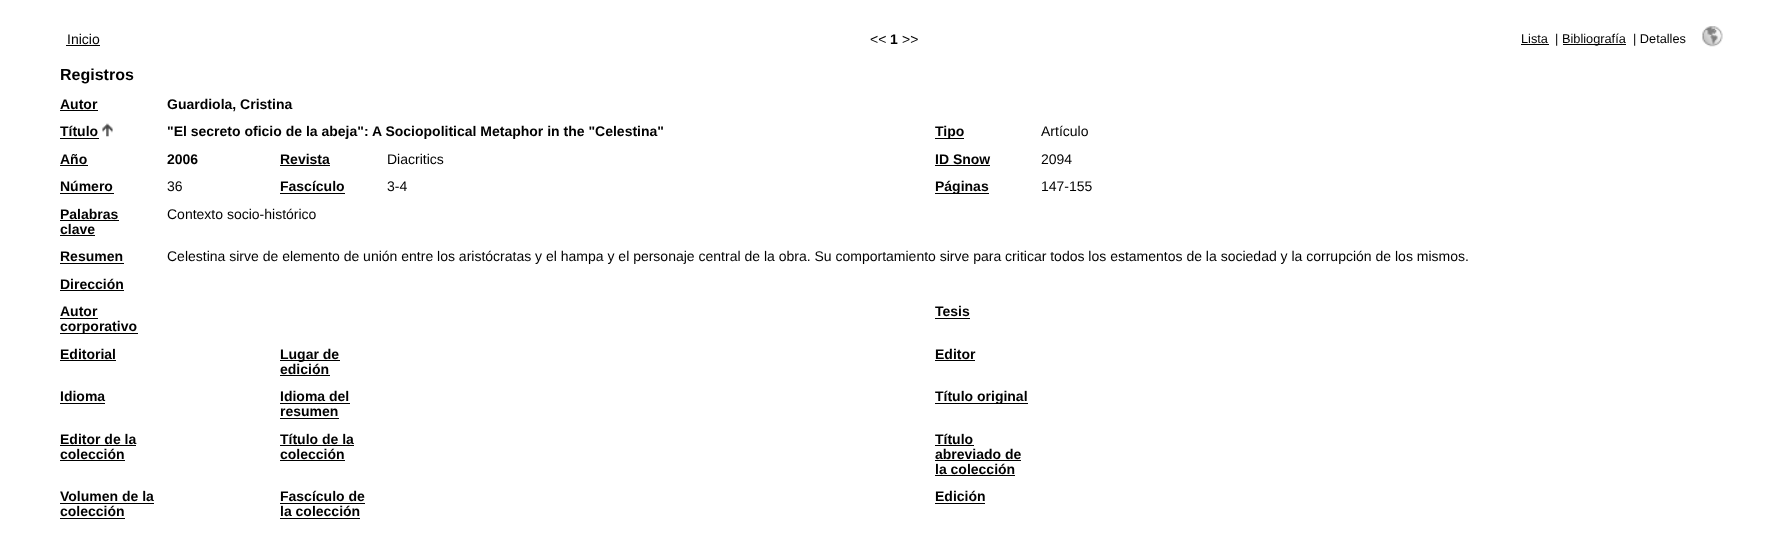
<svg xmlns="http://www.w3.org/2000/svg" width="1788" height="534" viewBox="0 0 1788 534">
  <rect width="100%" height="100%" fill="#fff"/>
  <path d="M66 45h34v1H66z" fill="#000"/>
  <path d="M1521 44h28v1H1521z" fill="#000"/>
  <path d="M1563 44h63v1H1563z" fill="#000"/>
  <image x="1702" y="26" width="21" height="21" href="img/1.png"/>
  <path d="M60 110h38v1H60z" fill="#000"/>
  <path d="M60 138h39v1H60z" fill="#000"/>
  <image x="102" y="123" width="11" height="14" href="img/2.png"/>
  <path d="M935 138h29v1H935z" fill="#000"/>
  <path d="M60 165h28v1H60z" fill="#000"/>
  <path d="M280 165h50v1H280z" fill="#000"/>
  <path d="M935 165h55v1H935z" fill="#000"/>
  <path d="M60 193h54v1H60z" fill="#000"/>
  <path d="M280 193h65v1H280z" fill="#000"/>
  <path d="M935 193h54v1H935z" fill="#000"/>
  <path d="M60 220h59v1H60z" fill="#000"/>
  <path d="M60 235h35v1H60z" fill="#000"/>
  <path d="M60 263h64v1H60z" fill="#000"/>
  <path d="M60 290h64v1H60z" fill="#000"/>
  <path d="M60 318h38v1H60z" fill="#000"/>
  <path d="M60 333h78v1H60z" fill="#000"/>
  <path d="M935 318h35v1H935z" fill="#000"/>
  <path d="M60 360h56v1H60z" fill="#000"/>
  <path d="M280 360h60v1H280z" fill="#000"/>
  <path d="M280 375h50v1H280z" fill="#000"/>
  <path d="M935 360h40v1H935z" fill="#000"/>
  <path d="M60 403h45v1H60z" fill="#000"/>
  <path d="M280 403h70v1H280z" fill="#000"/>
  <path d="M280 418h59v1H280z" fill="#000"/>
  <path d="M935 403h93v1H935z" fill="#000"/>
  <path d="M60 445h76v1H60z" fill="#000"/>
  <path d="M60 460h65v1H60z" fill="#000"/>
  <path d="M280 445h74v1H280z" fill="#000"/>
  <path d="M280 460h65v1H280z" fill="#000"/>
  <path d="M935 445h39v1H935z" fill="#000"/>
  <path d="M935 460h86v1H935z" fill="#000"/>
  <path d="M935 475h80v1H935z" fill="#000"/>
  <path d="M60 503h94v1H60z" fill="#000"/>
  <path d="M60 518h65v1H60z" fill="#000"/>
  <path d="M280 503h85v1H280z" fill="#000"/>
  <path d="M280 518h80v1H280z" fill="#000"/>
  <path d="M935 503h50v1H935z" fill="#000"/>
  <g font-family="Liberation Sans" font-size="14" fill="#000">
    <text x="67" y="44">Inicio</text>
    <text x="870" y="44">&lt;&lt;</text>
  </g>
  <text x="890" y="44" font-family="Liberation Sans" font-size="14" font-weight="bold" fill="#000">1</text>
  <text x="902" y="44" font-family="Liberation Sans" font-size="14" fill="#000">&gt;&gt;</text>
  <g font-family="Liberation Sans" font-size="12.75" fill="#000">
    <text x="1521" y="43">Lista</text>
    <text x="1555" y="43">|</text>
    <text x="1562" y="43">Bibliografía</text>
    <text x="1633" y="43">| Detalles</text>
  </g>
  <text x="60" y="80" font-family="Liberation Sans" font-size="16" font-weight="bold" fill="#000">Registros</text>
  <g font-family="Liberation Sans" font-size="14" font-weight="bold" fill="#000">
    <text x="60" y="109">Autor</text>
    <text x="167" y="109">Guardiola, Cristina</text>
    <text x="60" y="136">Título</text>
    <text x="167" y="136">"El secreto oficio de la abeja": A Sociopolitical Metaphor in the "Celestina"</text>
    <text x="935" y="136">Tipo</text>
  </g>
  <text x="1041" y="136" font-family="Liberation Sans" font-size="14" fill="#000">Artículo</text>
  <g font-family="Liberation Sans" font-size="14" font-weight="bold" fill="#000">
    <text x="60" y="164">Año</text>
    <text x="167" y="164">2006</text>
    <text x="280" y="164">Revista</text>
  </g>
  <text x="387" y="164" font-family="Liberation Sans" font-size="14" fill="#000">Diacritics</text>
  <text x="935" y="164" font-family="Liberation Sans" font-size="14" font-weight="bold" fill="#000">ID Snow</text>
  <text x="1041" y="164" font-family="Liberation Sans" font-size="14" fill="#000">2094</text>
  <text x="60" y="191" font-family="Liberation Sans" font-size="14" font-weight="bold" fill="#000">Número</text>
  <text x="167" y="191" font-family="Liberation Sans" font-size="14" fill="#000">36</text>
  <text x="280" y="191" font-family="Liberation Sans" font-size="14" font-weight="bold" fill="#000">Fascículo</text>
  <text x="387" y="191" font-family="Liberation Sans" font-size="14" fill="#000">3-4</text>
  <text x="935" y="191" font-family="Liberation Sans" font-size="14" font-weight="bold" fill="#000">Páginas</text>
  <text x="1041" y="191" font-family="Liberation Sans" font-size="14" fill="#000">147-155</text>
  <g font-family="Liberation Sans" font-size="14" font-weight="bold" fill="#000">
    <text x="60" y="219">Palabras</text>
    <text x="60" y="234">clave</text>
  </g>
  <text x="167" y="219" font-family="Liberation Sans" font-size="14" fill="#000">Contexto socio-histórico</text>
  <text x="60" y="261" font-family="Liberation Sans" font-size="14" font-weight="bold" fill="#000">Resumen</text>
  <text x="167" y="261" font-family="Liberation Sans" font-size="14" fill="#000">Celestina sirve de elemento de unión entre los aristócratas y el hampa y el personaje central de la obra. Su comportamiento sirve para criticar todos los estamentos de la sociedad y la corrupción de los mismos.</text>
  <g font-family="Liberation Sans" font-size="14" font-weight="bold" fill="#000">
    <text x="60" y="289">Dirección</text>
    <text x="60" y="316">Autor</text>
    <text x="60" y="331">corporativo</text>
    <text x="935" y="316">Tesis</text>
    <text x="60" y="359">Editorial</text>
    <text x="280" y="359">Lugar de</text>
    <text x="280" y="374">edición</text>
    <text x="935" y="359">Editor</text>
    <text x="60" y="401">Idioma</text>
    <text x="280" y="401">Idioma del</text>
    <text x="280" y="416">resumen</text>
    <text x="935" y="401">Título original</text>
    <text x="60" y="444">Editor de la</text>
    <text x="60" y="459">colección</text>
    <text x="280" y="444">Título de la</text>
    <text x="280" y="459">colección</text>
    <text x="935" y="444">Título</text>
    <text x="935" y="459">abreviado de</text>
    <text x="935" y="474">la colección</text>
    <text x="60" y="501">Volumen de la</text>
    <text x="60" y="516">colección</text>
    <text x="280" y="501">Fascículo de</text>
    <text x="280" y="516">la colección</text>
    <text x="935" y="501">Edición</text>
  </g>
</svg>
